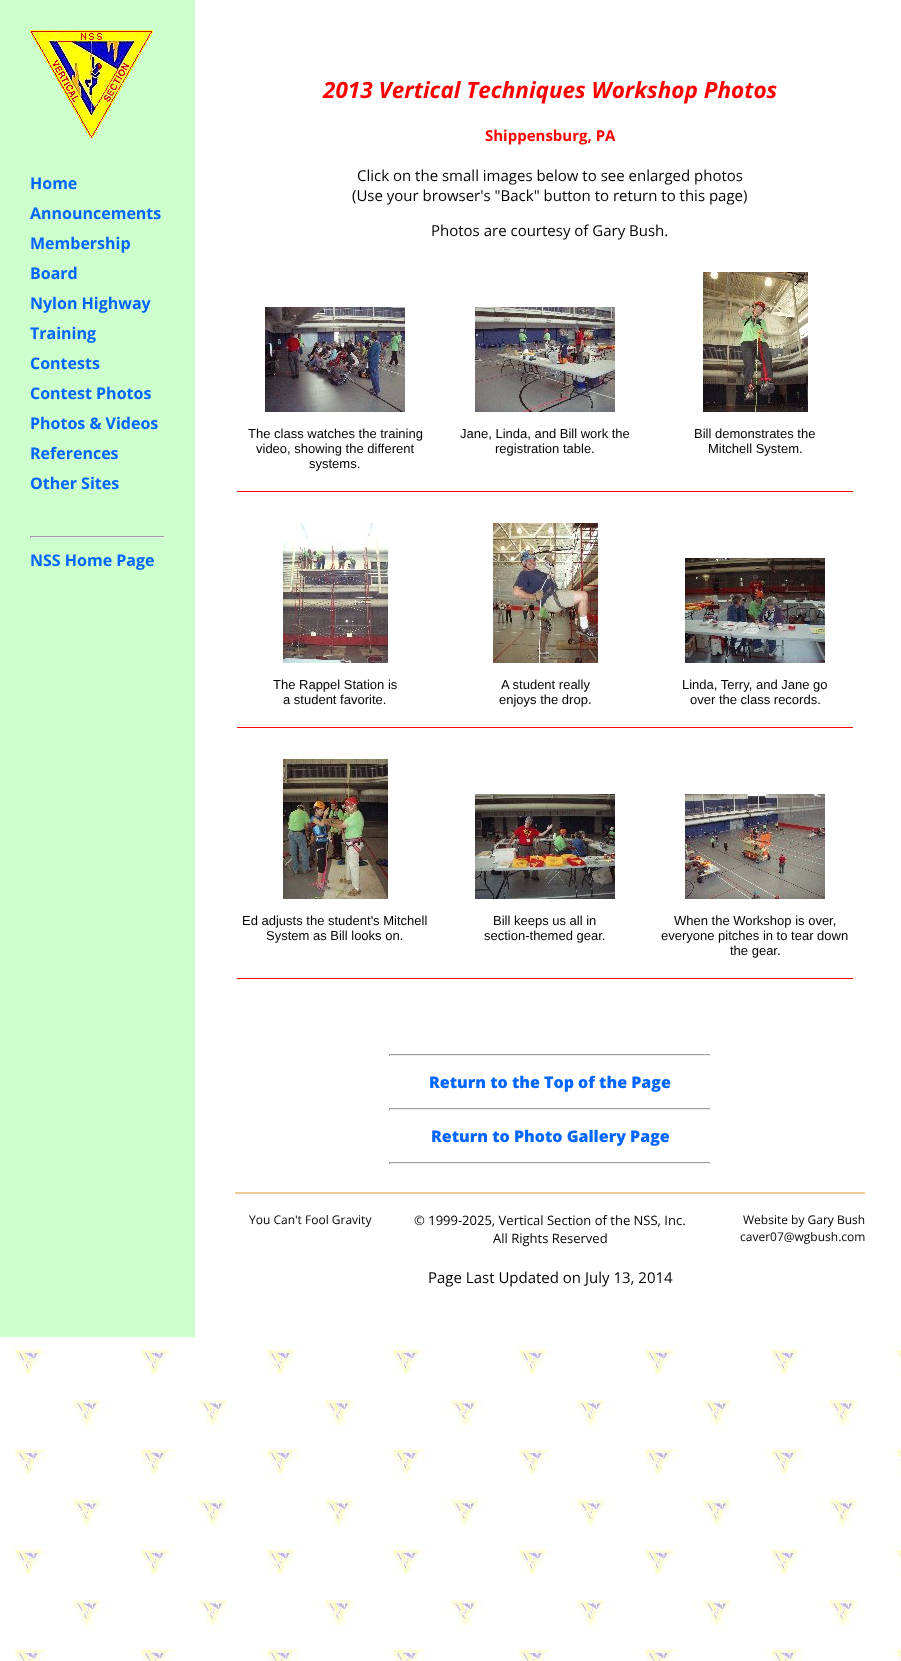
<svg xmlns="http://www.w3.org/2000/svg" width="901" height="1661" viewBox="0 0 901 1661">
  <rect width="100%" height="100%" fill="#fff"/>
  <image x="0" y="1337" width="901" height="324" href="img/1.png"/>
  <path d="M0 0h195v1337H0z" fill="#cfc"/>
  <image x="30" y="30" width="123" height="108" href="img/2.png"/>
  <path d="M30 536h135v1H30z" fill="#9f9f9f"/>
  <path d="M164 536h1v2H164z" fill="#eee"/>
  <path d="M30 537h135v1H30z" fill="#eee"/>
  <path d="M30 536h1v2H30z" fill="#9f9f9f"/>
  <image x="265" y="307" width="140" height="105" href="img/3.png"/>
  <image x="475" y="307" width="140" height="105" href="img/4.png"/>
  <image x="703" y="272" width="105" height="140" href="img/5.png"/>
  <path d="M237 491h616v1H237z" fill="#f00"/>
  <image x="283" y="523" width="105" height="140" href="img/6.png"/>
  <image x="493" y="523" width="105" height="140" href="img/7.png"/>
  <image x="685" y="558" width="140" height="105" href="img/8.png"/>
  <path d="M237 727h616v1H237z" fill="#f00"/>
  <image x="283" y="759" width="105" height="140" href="img/9.png"/>
  <image x="475" y="794" width="140" height="105" href="img/10.png"/>
  <image x="685" y="794" width="140" height="105" href="img/11.png"/>
  <path d="M237 978h616v1H237z" fill="#f00"/>
  <path d="M389 1054h322v1H389z" fill="#9f9f9f"/>
  <path d="M710 1054h1v2H710z" fill="#eee"/>
  <path d="M389 1055h322v1H389z" fill="#eee"/>
  <path d="M389 1054h1v2H389z" fill="#9f9f9f"/>
  <path d="M389 1108h322v1H389z" fill="#9f9f9f"/>
  <path d="M710 1108h1v2H710z" fill="#eee"/>
  <path d="M389 1109h322v1H389z" fill="#eee"/>
  <path d="M389 1108h1v2H389z" fill="#9f9f9f"/>
  <path d="M389 1162h322v1H389z" fill="#9f9f9f"/>
  <path d="M710 1162h1v2H710z" fill="#eee"/>
  <path d="M389 1163h322v1H389z" fill="#eee"/>
  <path d="M389 1162h1v2H389z" fill="#9f9f9f"/>
  <path d="M235 1192h630v2H235z" fill="#ec9"/>
  <g font-family="Open Sans" font-size="16" font-weight="bold" fill="#06f">
    <text x="30" y="189">Home</text>
    <text x="30" y="219">Announcements</text>
    <text x="30" y="249">Membership</text>
    <text x="30" y="279">Board</text>
    <text x="30" y="309">Nylon Highway</text>
    <text x="30" y="339">Training</text>
    <text x="30" y="369">Contests</text>
    <text x="30" y="399">Contest Photos</text>
    <text x="30" y="429">Photos &amp; Videos</text>
    <text x="30" y="459">References</text>
    <text x="30" y="489">Other Sites</text>
    <text x="30" y="566">NSS Home Page</text>
  </g>
  <text x="323" y="98" font-family="Open Sans" font-size="22.5" font-weight="bold" font-style="italic" fill="#f00">2013 Vertical Techniques Workshop Photos</text>
  <text x="485" y="141" font-family="Open Sans" font-size="15" font-weight="bold" fill="#f00">Shippensburg, PA</text>
  <g font-family="Open Sans" font-size="15" fill="#000">
    <text x="357" y="181">Click on the small images below to see enlarged photos</text>
    <text x="352" y="201">(Use your browser's "Back" button to return to this page)</text>
    <text x="431" y="236">Photos are courtesy of Gary Bush.</text>
  </g>
  <g font-family="Liberation Sans" font-size="13" fill="#000">
    <text x="248" y="438">The class watches the training</text>
    <text x="256" y="453">video, showing the different</text>
    <text x="309" y="468">systems.</text>
    <text x="460" y="438">Jane, Linda, and Bill work the</text>
    <text x="495" y="453">registration table.</text>
    <text x="694" y="438">Bill demonstrates the</text>
    <text x="708" y="453">Mitchell System.</text>
    <text x="273" y="689">The Rappel Station is</text>
    <text x="283" y="704">a student favorite.</text>
    <text x="501" y="689">A student really</text>
    <text x="499" y="704">enjoys the drop.</text>
    <text x="682" y="689">Linda, Terry, and Jane go</text>
    <text x="690" y="704">over the class records.</text>
    <text x="242" y="925">Ed adjusts the student's Mitchell</text>
    <text x="266" y="940">System as Bill looks on.</text>
    <text x="493" y="925">Bill keeps us all in</text>
    <text x="484" y="940">section-themed gear.</text>
    <text x="674" y="925">When the Workshop is over,</text>
    <text x="661" y="940">everyone pitches in to tear down</text>
    <text x="730" y="955">the gear.</text>
  </g>
  <g font-family="Open Sans" font-size="16" font-weight="800" fill="#06f">
    <text x="429" y="1088">Return to the Top of the Page</text>
    <text x="431" y="1142">Return to Photo Gallery Page</text>
  </g>
  <text x="249" y="1224" font-family="Open Sans" font-size="12" fill="#000">You Can't Fool Gravity</text>
  <g font-family="Open Sans" font-size="13" fill="#000">
    <text x="414" y="1225">© 1999-2025, Vertical Section of the NSS, Inc.</text>
    <text x="493" y="1243">All Rights Reserved</text>
  </g>
  <g font-family="Open Sans" font-size="12" fill="#000">
    <text x="743" y="1224">Website by Gary Bush</text>
    <text x="740" y="1241">caver07@wgbush.com</text>
  </g>
  <text x="428" y="1283" font-family="Open Sans" font-size="15" fill="#000">Page Last Updated on July 13, 2014</text>
</svg>
